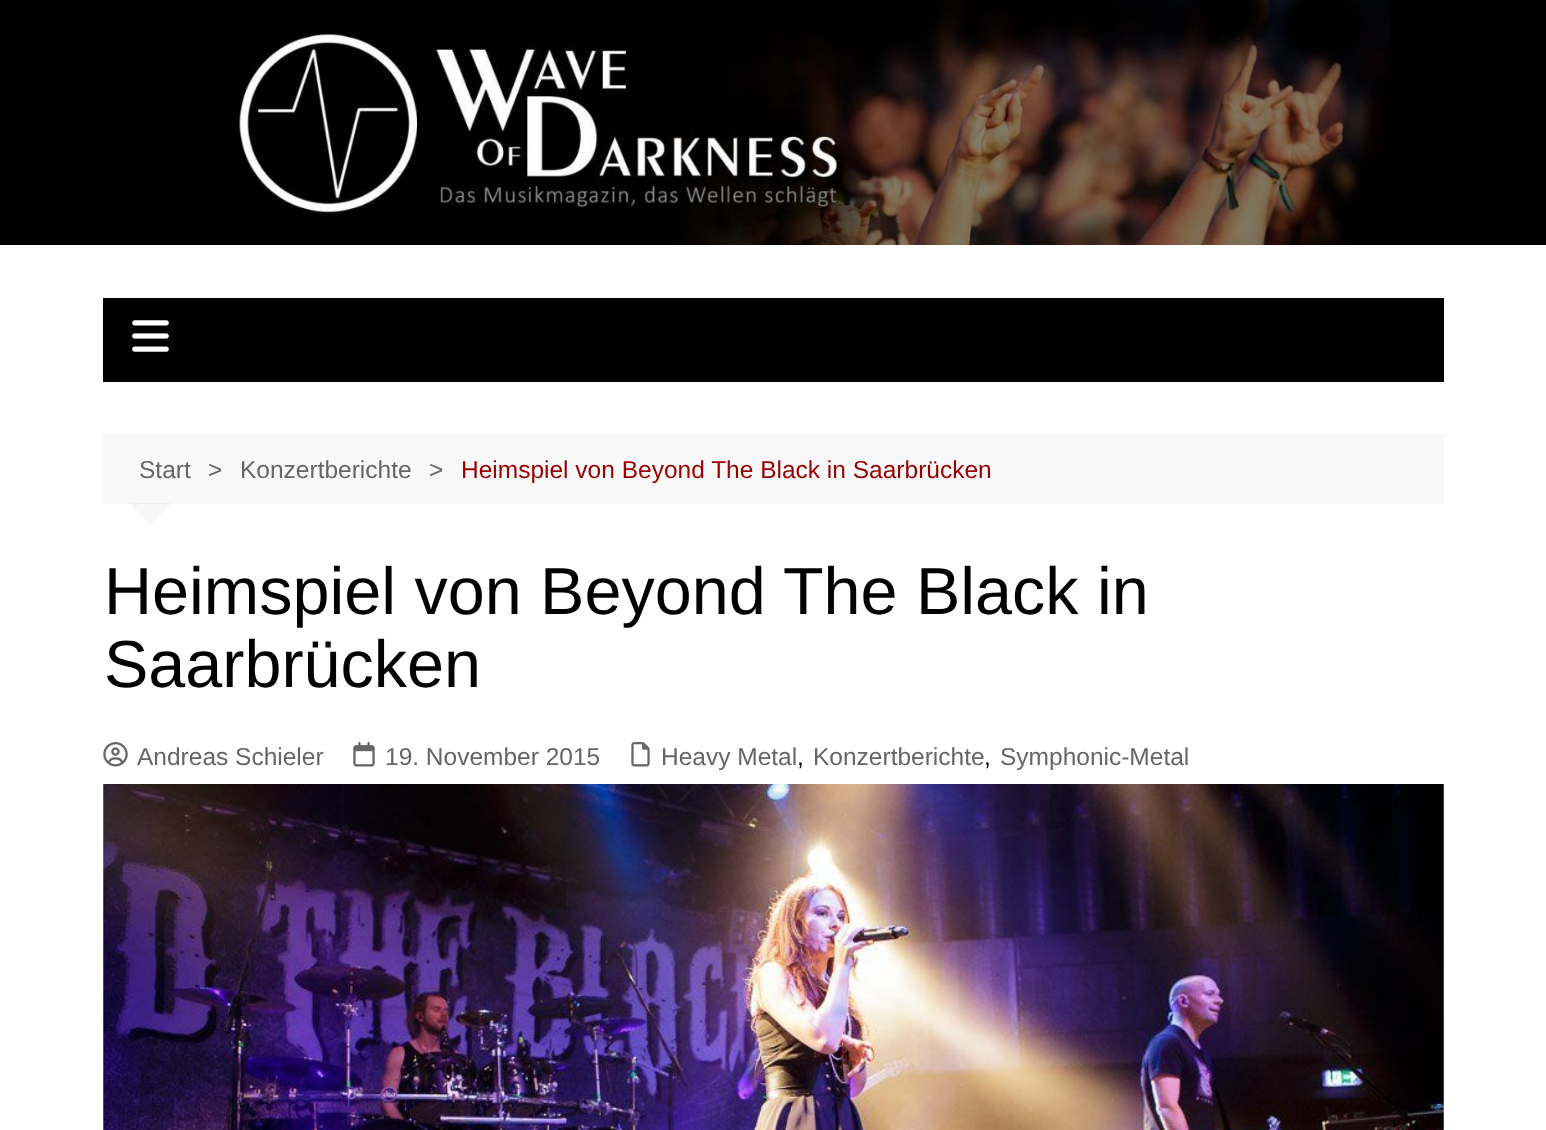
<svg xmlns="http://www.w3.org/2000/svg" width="1546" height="1130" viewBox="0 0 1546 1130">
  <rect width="100%" height="100%" fill="#fff"/>
  <image x="0" y="0" width="1546" height="245" href="img/1.png"/>
  <path d="M103 298h1341v84H103z" fill="#000"/>
  <image x="132" y="320" width="37" height="32" href="img/2.png"/>
  <path d="M103 434h1341v70H103z" fill="#f8f8f8"/>
  <path d="M130 503H172L151 526Z" fill="#00000008"/>
  <image x="103" y="742" width="25" height="25" href="img/3.png"/>
  <image x="353" y="742" width="22" height="25" href="img/4.png"/>
  <image x="631" y="742" width="19" height="25" href="img/5.png"/>
  <image x="103" y="784" width="1341" height="346" href="img/6.png"/>
  <g font-family="Liberation Sans" font-size="24.5" fill="#666">
    <text x="139" y="478">Start</text>
    <text x="208" y="478">&gt;</text>
    <text x="240" y="478">Konzertberichte</text>
    <text x="429" y="478">&gt;</text>
  </g>
  <text x="461" y="478" font-family="Liberation Sans" font-size="24.5" fill="#900">Heimspiel von Beyond The Black in Saarbrücken</text>
  <g font-family="Liberation Sans" font-size="66.5" fill="#010101">
    <text x="104" y="614">Heimspiel von Beyond The Black in</text>
    <text x="104" y="687">Saarbrücken</text>
  </g>
  <g font-family="Liberation Sans" font-size="24.5" fill="#666">
    <text x="137" y="765">Andreas Schieler</text>
    <text x="385" y="765">19. November 2015</text>
    <text x="661" y="765">Heavy Metal</text>
  </g>
  <text x="797" y="765" font-family="Liberation Sans" font-size="24.5" fill="#010101">,</text>
  <text x="813" y="765" font-family="Liberation Sans" font-size="24.5" fill="#666">Konzertberichte</text>
  <text x="984" y="765" font-family="Liberation Sans" font-size="24.5" fill="#010101">,</text>
  <text x="1000" y="765" font-family="Liberation Sans" font-size="24.5" fill="#666">Symphonic-Metal</text>
</svg>
